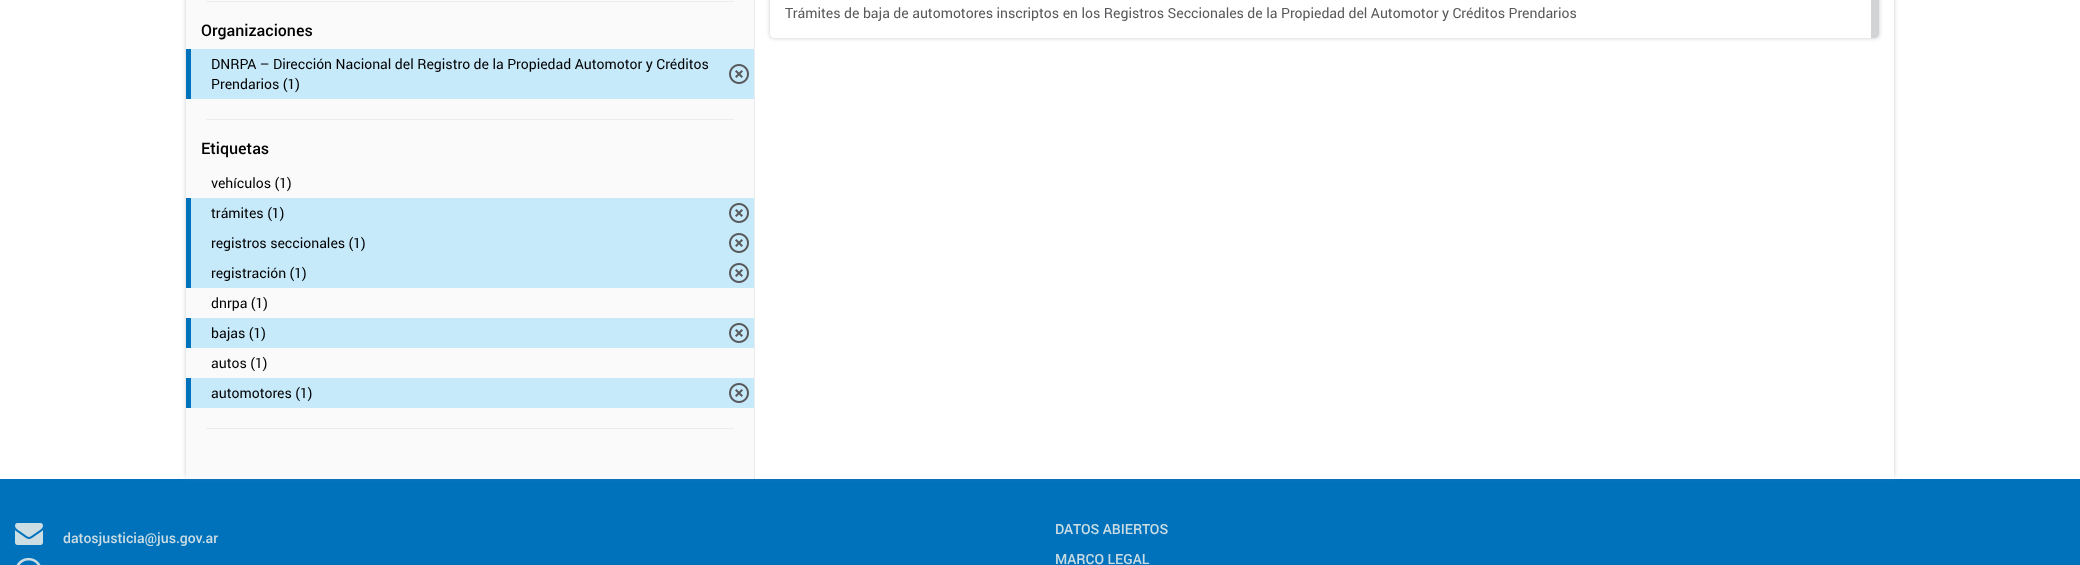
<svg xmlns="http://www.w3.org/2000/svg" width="2080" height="565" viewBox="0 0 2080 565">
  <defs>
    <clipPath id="clip1"><path d="M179 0H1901V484H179ZM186-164H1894V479H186Z" clip-rule="evenodd"/></clipPath>
    <clipPath id="clip2"><path d="M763 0H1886V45H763ZM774-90H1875C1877-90 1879-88 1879-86V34C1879 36 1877 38 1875 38H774C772 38 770 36 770 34V-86C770-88 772-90 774-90Z" clip-rule="evenodd"/></clipPath>
  </defs>
  <rect width="100%" height="100%" fill="#fff"/>
  <path d="M0 479h2080v86H0z" fill="#0072bc"/>
  <g clip-path="url(#clip1)">
    <path d="M186 -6h1708v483H186z" fill="#96969680" filter="blur(2px)"/>
  </g>
  <g clip-path="url(#clip2)">
    <rect x="770" y="-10" width="1109" height="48" rx="4" fill="#96969680" filter="blur(2px)"/>
  </g>
  <path d="M1871-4H1875C1877-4 1879-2 1879 0V34C1879 36 1877 38 1875 38H1871Z" fill="#d1d3d4"/>
  <path d="M186 0h568v479H186z" fill="#fafafa"/>
  <path d="M754 0h1v479H754z" fill="#eaeced"/>
  <path d="M206 1h528v1H206z" fill="#eaeced"/>
  <path d="M191 49h563v50H191z" fill="#c7eafb"/>
  <path d="M186 49h5v50H186z" fill="#0072bc"/>
  <image x="729" y="64" width="20" height="20" href="img/1.png"/>
  <path d="M206 119h528v1H206z" fill="#eaeced"/>
  <path d="M191 198h563v90H191z" fill="#c7eafb"/>
  <path d="M186 198h5v90H186z" fill="#0072bc"/>
  <image x="729" y="203" width="20" height="20" href="img/1.png"/>
  <image x="729" y="233" width="20" height="20" href="img/1.png"/>
  <image x="729" y="263" width="20" height="20" href="img/1.png"/>
  <path d="M191 318h563v30H191z" fill="#c7eafb"/>
  <path d="M186 318h5v30H186z" fill="#0072bc"/>
  <image x="729" y="323" width="20" height="20" href="img/1.png"/>
  <path d="M191 378h563v30H191z" fill="#c7eafb"/>
  <path d="M186 378h5v30H186z" fill="#0072bc"/>
  <image x="729" y="383" width="20" height="20" href="img/1.png"/>
  <path d="M206 428h528v1H206z" fill="#eaeced"/>
  <image x="15" y="523" width="28" height="22" href="img/2.png"/>
  <image x="16" y="557" width="25" height="8" href="img/3.png"/>
  <text x="785" y="18" font-family="Roboto" font-size="14" fill="#58595b">Trámites de baja de automotores inscriptos en los Registros Seccionales de la Propiedad del Automotor y Créditos Prendarios</text>
  <text x="201" y="36" font-family="Roboto" font-size="16" font-weight="500" fill="#000">Organizaciones</text>
  <g font-family="Roboto" font-size="14" fill="#000">
    <text x="211" y="69">DNRPA – Dirección Nacional del Registro de la Propiedad Automotor y Créditos</text>
    <text x="211" y="89">Prendarios (1)</text>
  </g>
  <text x="201" y="154" font-family="Roboto" font-size="16" font-weight="500" fill="#000">Etiquetas</text>
  <g font-family="Roboto" font-size="14" fill="#000">
    <text x="211" y="188">vehículos (1)</text>
    <text x="211" y="218">trámites (1)</text>
    <text x="211" y="248">registros seccionales (1)</text>
    <text x="211" y="278">registración (1)</text>
    <text x="211" y="308">dnrpa (1)</text>
    <text x="211" y="338">bajas (1)</text>
    <text x="211" y="368">autos (1)</text>
    <text x="211" y="398">automotores (1)</text>
  </g>
  <g font-family="Roboto" font-size="14" font-weight="500" fill="#ccdee3">
    <text x="63" y="543">datosjusticia@jus.gov.ar</text>
    <text x="1055" y="534">DATOS ABIERTOS</text>
    <text x="1055" y="564">MARCO LEGAL</text>
  </g>
</svg>
